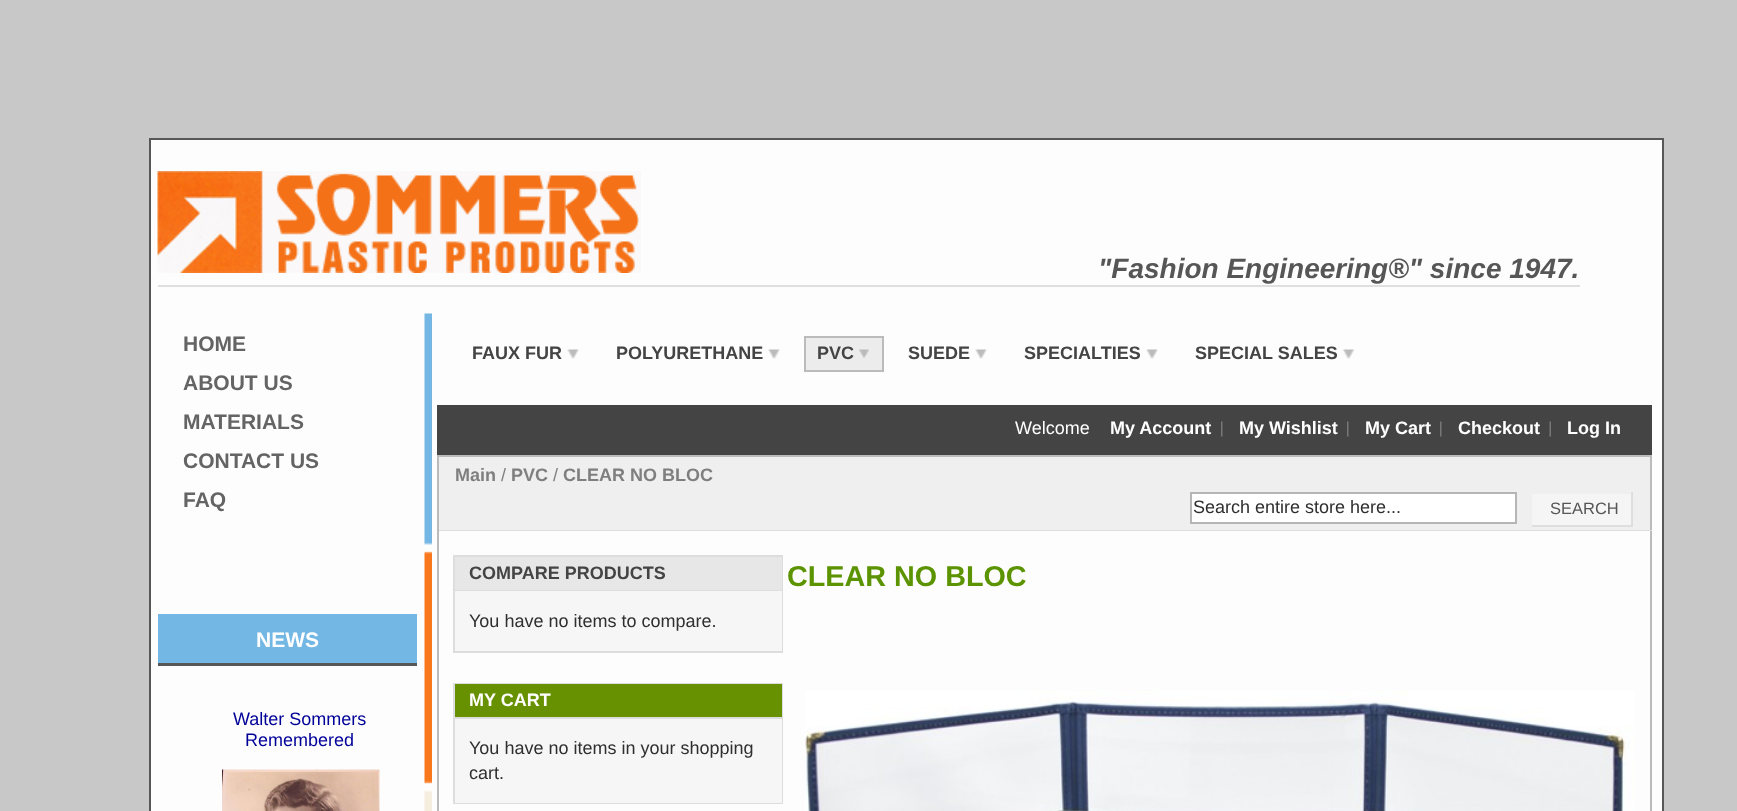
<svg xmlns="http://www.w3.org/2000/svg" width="1737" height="811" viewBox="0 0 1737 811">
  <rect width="100%" height="100%" fill="#c8c8c8"/>
  <path d="M150 139h1513v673H150z" fill="#fdfdfd" stroke="#575757" stroke-width="2"/>
  <path d="M158 285h1422v2H158z" fill="#dfdfdf"/>
  <path d="M158 171h483v102H158z" fill="#faf8f8"/>
  <image x="157" y="171" width="482" height="102" href="img/1.png"/>
  <image x="424" y="313" width="8" height="498" href="img/2.png"/>
  <path d="M158 614h259v49H158z" fill="#73b7e4"/>
  <path d="M158 663h259v3H158z" fill="#575757"/>
  <image x="222" y="769" width="158" height="42" href="img/3.png"/>
  <image x="567" y="349" width="12" height="10" href="img/4.png"/>
  <image x="768" y="349" width="12" height="10" href="img/5.png"/>
  <path d="M805 337h78v34H805z" fill="#ececec" stroke="#bbb" stroke-width="2"/>
  <image x="859" y="349" width="10" height="9" href="img/6.png"/>
  <image x="975" y="349" width="12" height="10" href="img/5.png"/>
  <image x="1146" y="349" width="12" height="10" href="img/4.png"/>
  <image x="1342" y="349" width="13" height="10" href="img/7.png"/>
  <path d="M437 405h1215v50H437z" fill="#444"/>
  <image x="1221" y="421" width="2" height="16" href="img/8.png"/>
  <image x="1347" y="421" width="2" height="16" href="img/8.png"/>
  <image x="1440" y="421" width="2" height="16" href="img/8.png"/>
  <image x="1549" y="421" width="2" height="16" href="img/9.png"/>
  <path d="M439 457h1211v73H439z" fill="#efefef"/>
  <path d="M437 455h1215v2H437z" fill="#bbb"/>
  <path d="M1650 455h2v356H1650z" fill="#bbb"/>
  <path d="M437 530h1215v1H437z" fill="#dedede"/>
  <path d="M437 455h2v356H437z" fill="#bbb"/>
  <path d="M1191 493h325v30H1191z" fill="#fff" stroke="#b6b6b6" stroke-width="2"/>
  <path d="M1532 494h99v31H1532z" fill="#f5f5f5"/>
  <path d="M1631 492h2v35H1631z" fill="#dedede"/>
  <path d="M1530 525h102v2H1530z" fill="#dedede"/>
  <path d="M1530 525h2v2H1530z" fill="#eee"/>
  <path d="M454 556h328v96H454z" fill="none" stroke="#ddd" stroke-width="2"/>
  <path d="M455 557h327v33H455z" fill="#e7e7e7"/>
  <path d="M455 590h327v1H455z" fill="#ddd"/>
  <path d="M455 591h327v60H455z" fill="#f6f6f6"/>
  <path d="M454 684h328v119H454z" fill="none" stroke="#ddd" stroke-width="2"/>
  <path d="M455 684h327v33H455z" fill="#679100"/>
  <path d="M455 717h327v2H455z" fill="#ddd"/>
  <path d="M455 719h327v84H455z" fill="#f6f6f6"/>
  <image x="805" y="691" width="830" height="120" href="img/10.png"/>
  <text x="1098" y="278" font-family="Liberation Sans" font-size="28" font-weight="bold" font-style="italic" fill="#565656">"Fashion Engineering®" since 1947.</text>
  <g font-family="Liberation Sans" font-size="21" font-weight="bold" fill="#646464">
    <text x="183" y="351">HOME</text>
    <text x="183" y="390">ABOUT US</text>
    <text x="183" y="429">MATERIALS</text>
    <text x="183" y="468">CONTACT US</text>
    <text x="183" y="507">FAQ</text>
  </g>
  <text x="256" y="647" font-family="Liberation Sans" font-size="21" font-weight="bold" fill="#fff">NEWS</text>
  <g font-family="Liberation Sans" font-size="18" fill="#009">
    <text x="233" y="725">Walter Sommers</text>
    <text x="245" y="746">Remembered</text>
  </g>
  <g font-family="Liberation Sans" font-size="18" font-weight="bold" fill="#444">
    <text x="472" y="359">FAUX FUR</text>
    <text x="616" y="359">POLYURETHANE</text>
    <text x="817" y="359">PVC</text>
    <text x="908" y="359">SUEDE</text>
    <text x="1024" y="359">SPECIALTIES</text>
    <text x="1195" y="359">SPECIAL SALES</text>
  </g>
  <text x="1015" y="434" font-family="Liberation Sans" font-size="18" fill="#fff">Welcome</text>
  <g font-family="Liberation Sans" font-size="18" font-weight="bold" fill="#fff">
    <text x="1110" y="434">My Account</text>
    <text x="1239" y="434">My Wishlist</text>
    <text x="1365" y="434">My Cart</text>
    <text x="1458" y="434">Checkout</text>
    <text x="1567" y="434">Log In</text>
  </g>
  <text x="455" y="481" font-family="Liberation Sans" font-size="18" font-weight="bold" fill="#7f7f7f">Main</text>
  <text x="501" y="481" font-family="Liberation Sans" font-size="18" fill="#7f7f7f">/</text>
  <text x="511" y="481" font-family="Liberation Sans" font-size="18" font-weight="bold" fill="#7f7f7f">PVC</text>
  <text x="553" y="481" font-family="Liberation Sans" font-size="18" fill="#7f7f7f">/</text>
  <text x="563" y="481" font-family="Liberation Sans" font-size="18" font-weight="bold" fill="#7f7f7f">CLEAR NO BLOC</text>
  <text x="1193" y="513" font-family="Liberation Sans" font-size="18" fill="#2f2f2f">Search entire store here...</text>
  <text x="1550" y="514" font-family="Liberation Sans" font-size="16.5" fill="#565656">SEARCH</text>
  <text x="469" y="579" font-family="Liberation Sans" font-size="18" font-weight="bold" fill="#444">COMPARE PRODUCTS</text>
  <text x="469" y="627" font-family="Liberation Sans" font-size="18" fill="#2f2f2f">You have no items to compare.</text>
  <text x="469" y="706" font-family="Liberation Sans" font-size="18" font-weight="bold" fill="#fff">MY CART</text>
  <g font-family="Liberation Sans" font-size="18" fill="#2f2f2f">
    <text x="469" y="754">You have no items in your shopping</text>
    <text x="469" y="779">cart.</text>
  </g>
  <text x="787" y="586" font-family="Liberation Sans" font-size="28.75" font-weight="bold" fill="#5b9400">CLEAR NO BLOC</text>
</svg>
